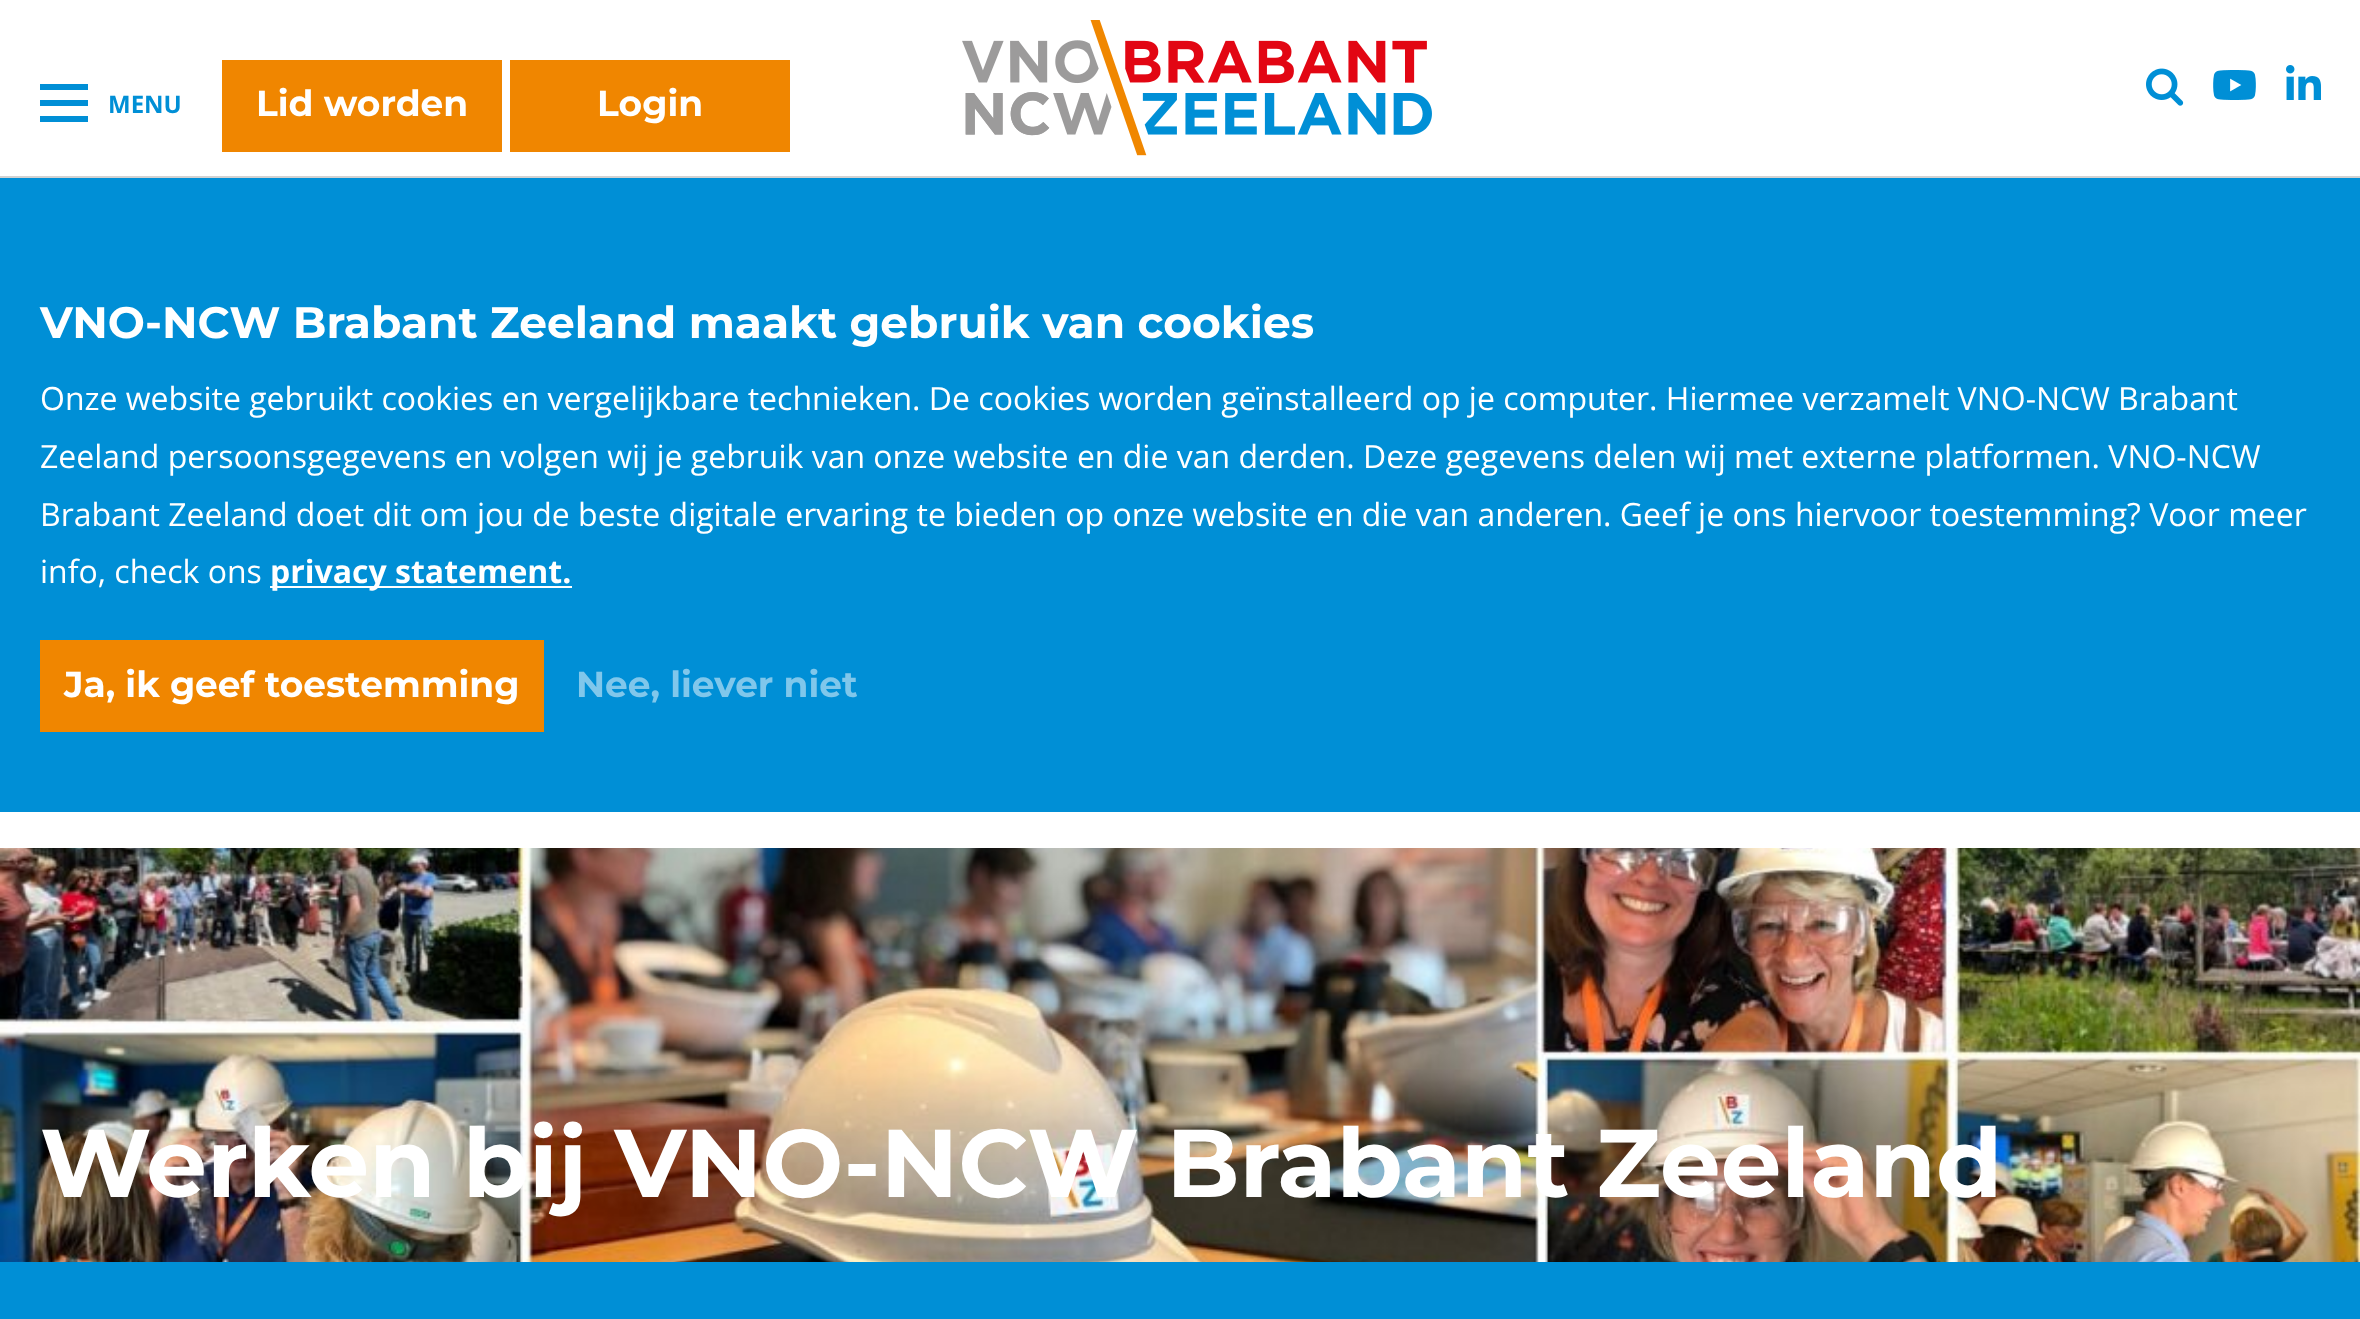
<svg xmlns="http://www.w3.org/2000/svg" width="2360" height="1319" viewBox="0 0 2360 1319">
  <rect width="100%" height="100%" fill="#fff"/>
  <path d="M0 176h2360v2H0z" fill="#d2d2d2"/>
  <path d="M40 100h48v6H40z" fill="#008fd6"/>
  <path d="M40 84h48v6H40z" fill="#008fd6"/>
  <path d="M40 116h48v6H40z" fill="#008fd6"/>
  <path d="M222 60h280v92H222z" fill="#f08600"/>
  <path d="M510 60h280v92H510z" fill="#f08600"/>
  <image x="962" y="20" width="470" height="136" href="img/1.png"/>
  <image x="2146" y="68" width="38" height="38" href="img/2.png"/>
  <image x="2213" y="70" width="43" height="30" href="img/3.png"/>
  <image x="2286" y="65" width="35" height="35" href="img/4.png"/>
  <path d="M0 178h2360v634H0z" fill="#008fd6"/>
  <path d="M270 586h302v2H270z" fill="#fff"/>
  <path d="M40 640h504v92H40z" fill="#f08600"/>
  <image x="0" y="848" width="2360" height="414" href="img/5.png"/>
  <path d="M0 1262h2360v57H0z" fill="#008fd6"/>
  <text x="108" y="113" font-family="Open Sans" font-size="24" font-weight="bold" fill="#008fd6">MENU</text>
  <g font-family="Montserrat" font-size="36" font-weight="bold" fill="#fff">
    <text x="256" y="116">Lid worden</text>
    <text x="597" y="116">Login</text>
  </g>
  <text x="40" y="338" font-family="Montserrat" font-size="44" font-weight="bold" fill="#fff">VNO-NCW Brabant Zeeland maakt gebruik van cookies</text>
  <g font-family="Open Sans" font-size="32" fill="#fff">
    <text x="40" y="410">Onze website gebruikt cookies en vergelijkbare technieken. De cookies worden geïnstalleerd op je computer. Hiermee verzamelt VNO-NCW Brabant</text>
    <text x="40" y="468">Zeeland persoonsgegevens en volgen wij je gebruik van onze website en die van derden. Deze gegevens delen wij met externe platformen. VNO-NCW</text>
    <text x="40" y="526">Brabant Zeeland doet dit om jou de beste digitale ervaring te bieden op onze website en die van anderen. Geef je ons hiervoor toestemming? Voor meer</text>
    <text x="40" y="583">info, check ons</text>
  </g>
  <text x="270" y="583" font-family="Open Sans" font-size="32" font-weight="bold" fill="#fff">privacy statement.</text>
  <text x="64" y="697" font-family="Montserrat" font-size="36" font-weight="bold" fill="#fff">Ja, ik geef toestemming</text>
  <text x="576" y="697" font-family="Montserrat" font-size="36" font-weight="bold" fill="#80c7eb">Nee, liever niet</text>
  <text x="40" y="1197" font-family="Montserrat" font-size="96" font-weight="bold" fill="#fff">Werken bij VNO-NCW Brabant Zeeland</text>
</svg>
